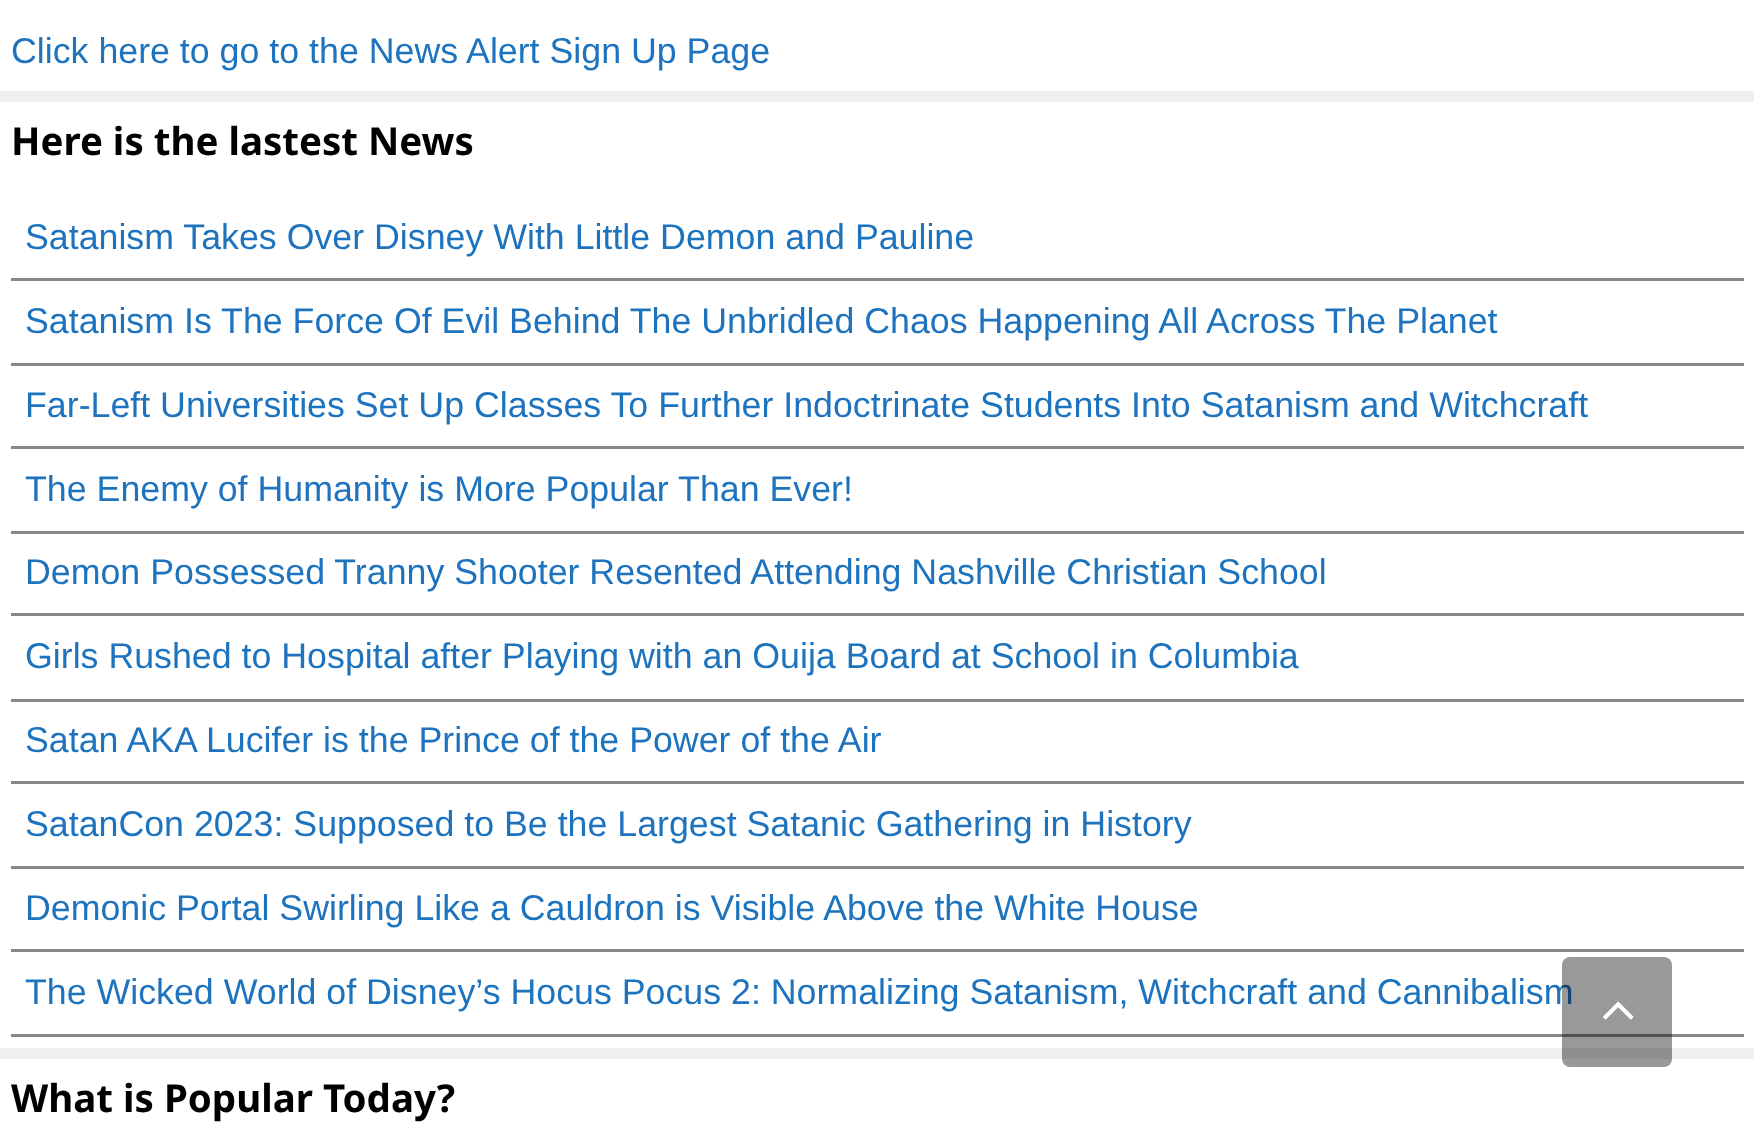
<svg xmlns="http://www.w3.org/2000/svg" width="1754" height="1148" viewBox="0 0 1754 1148">
  <rect width="100%" height="100%" fill="#efefef"/>
  <path d="M0 0h1754v91H0z" fill="#fff"/>
  <path d="M0 102h1754v946H0z" fill="#fff"/>
  <path d="M11 278h1733v3H11z" fill="#888"/>
  <path d="M11 363h1733v3H11z" fill="#888"/>
  <path d="M11 446h1733v3H11z" fill="#888"/>
  <path d="M11 531h1733v3H11z" fill="#888"/>
  <path d="M11 613h1733v3H11z" fill="#888"/>
  <path d="M11 699h1733v3H11z" fill="#888"/>
  <path d="M11 781h1733v3H11z" fill="#888"/>
  <path d="M11 866h1733v3H11z" fill="#888"/>
  <path d="M11 949h1733v3H11z" fill="#888"/>
  <path d="M11 1034h1733v3H11z" fill="#888"/>
  <path d="M0 1059h1754v89H0z" fill="#fff"/>
  <text x="11" y="63" font-family="Liberation Sans" font-size="35.75" fill="#1e73be">Click here to go to the News Alert Sign Up Page</text>
  <text x="11" y="155" font-family="Noto Sans" font-size="38.5" font-weight="bold" fill="#000">Here is the lastest News</text>
  <g font-family="Liberation Sans" font-size="35.75" fill="#1e73be">
    <text x="25" y="249">Satanism Takes Over Disney With Little Demon and Pauline</text>
    <text x="25" y="333">Satanism Is The Force Of Evil Behind The Unbridled Chaos Happening All Across The Planet</text>
    <text x="25" y="417">Far-Left Universities Set Up Classes To Further Indoctrinate Students Into Satanism and Witchcraft</text>
    <text x="25" y="501">The Enemy of Humanity is More Popular Than Ever!</text>
    <text x="25" y="584">Demon Possessed Tranny Shooter Resented Attending Nashville Christian School</text>
    <text x="25" y="668">Girls Rushed to Hospital after Playing with an Ouija Board at School in Columbia</text>
    <text x="25" y="752">Satan AKA Lucifer is the Prince of the Power of the Air</text>
    <text x="25" y="836">SatanCon 2023: Supposed to Be the Largest Satanic Gathering in History</text>
    <text x="25" y="920">Demonic Portal Swirling Like a Cauldron is Visible Above the White House</text>
    <text x="25" y="1004">The Wicked World of Disney’s Hocus Pocus 2: Normalizing Satanism, Witchcraft and Cannibalism</text>
  </g>
  <text x="11" y="1112" font-family="Noto Sans" font-size="38.5" font-weight="bold" fill="#000">What is Popular Today?</text>
  <rect x="1562" y="957" width="110" height="110" rx="8" fill="#00000066"/>
  <image x="1603" y="1001" width="31" height="19" href="img/1.png"/>
</svg>
